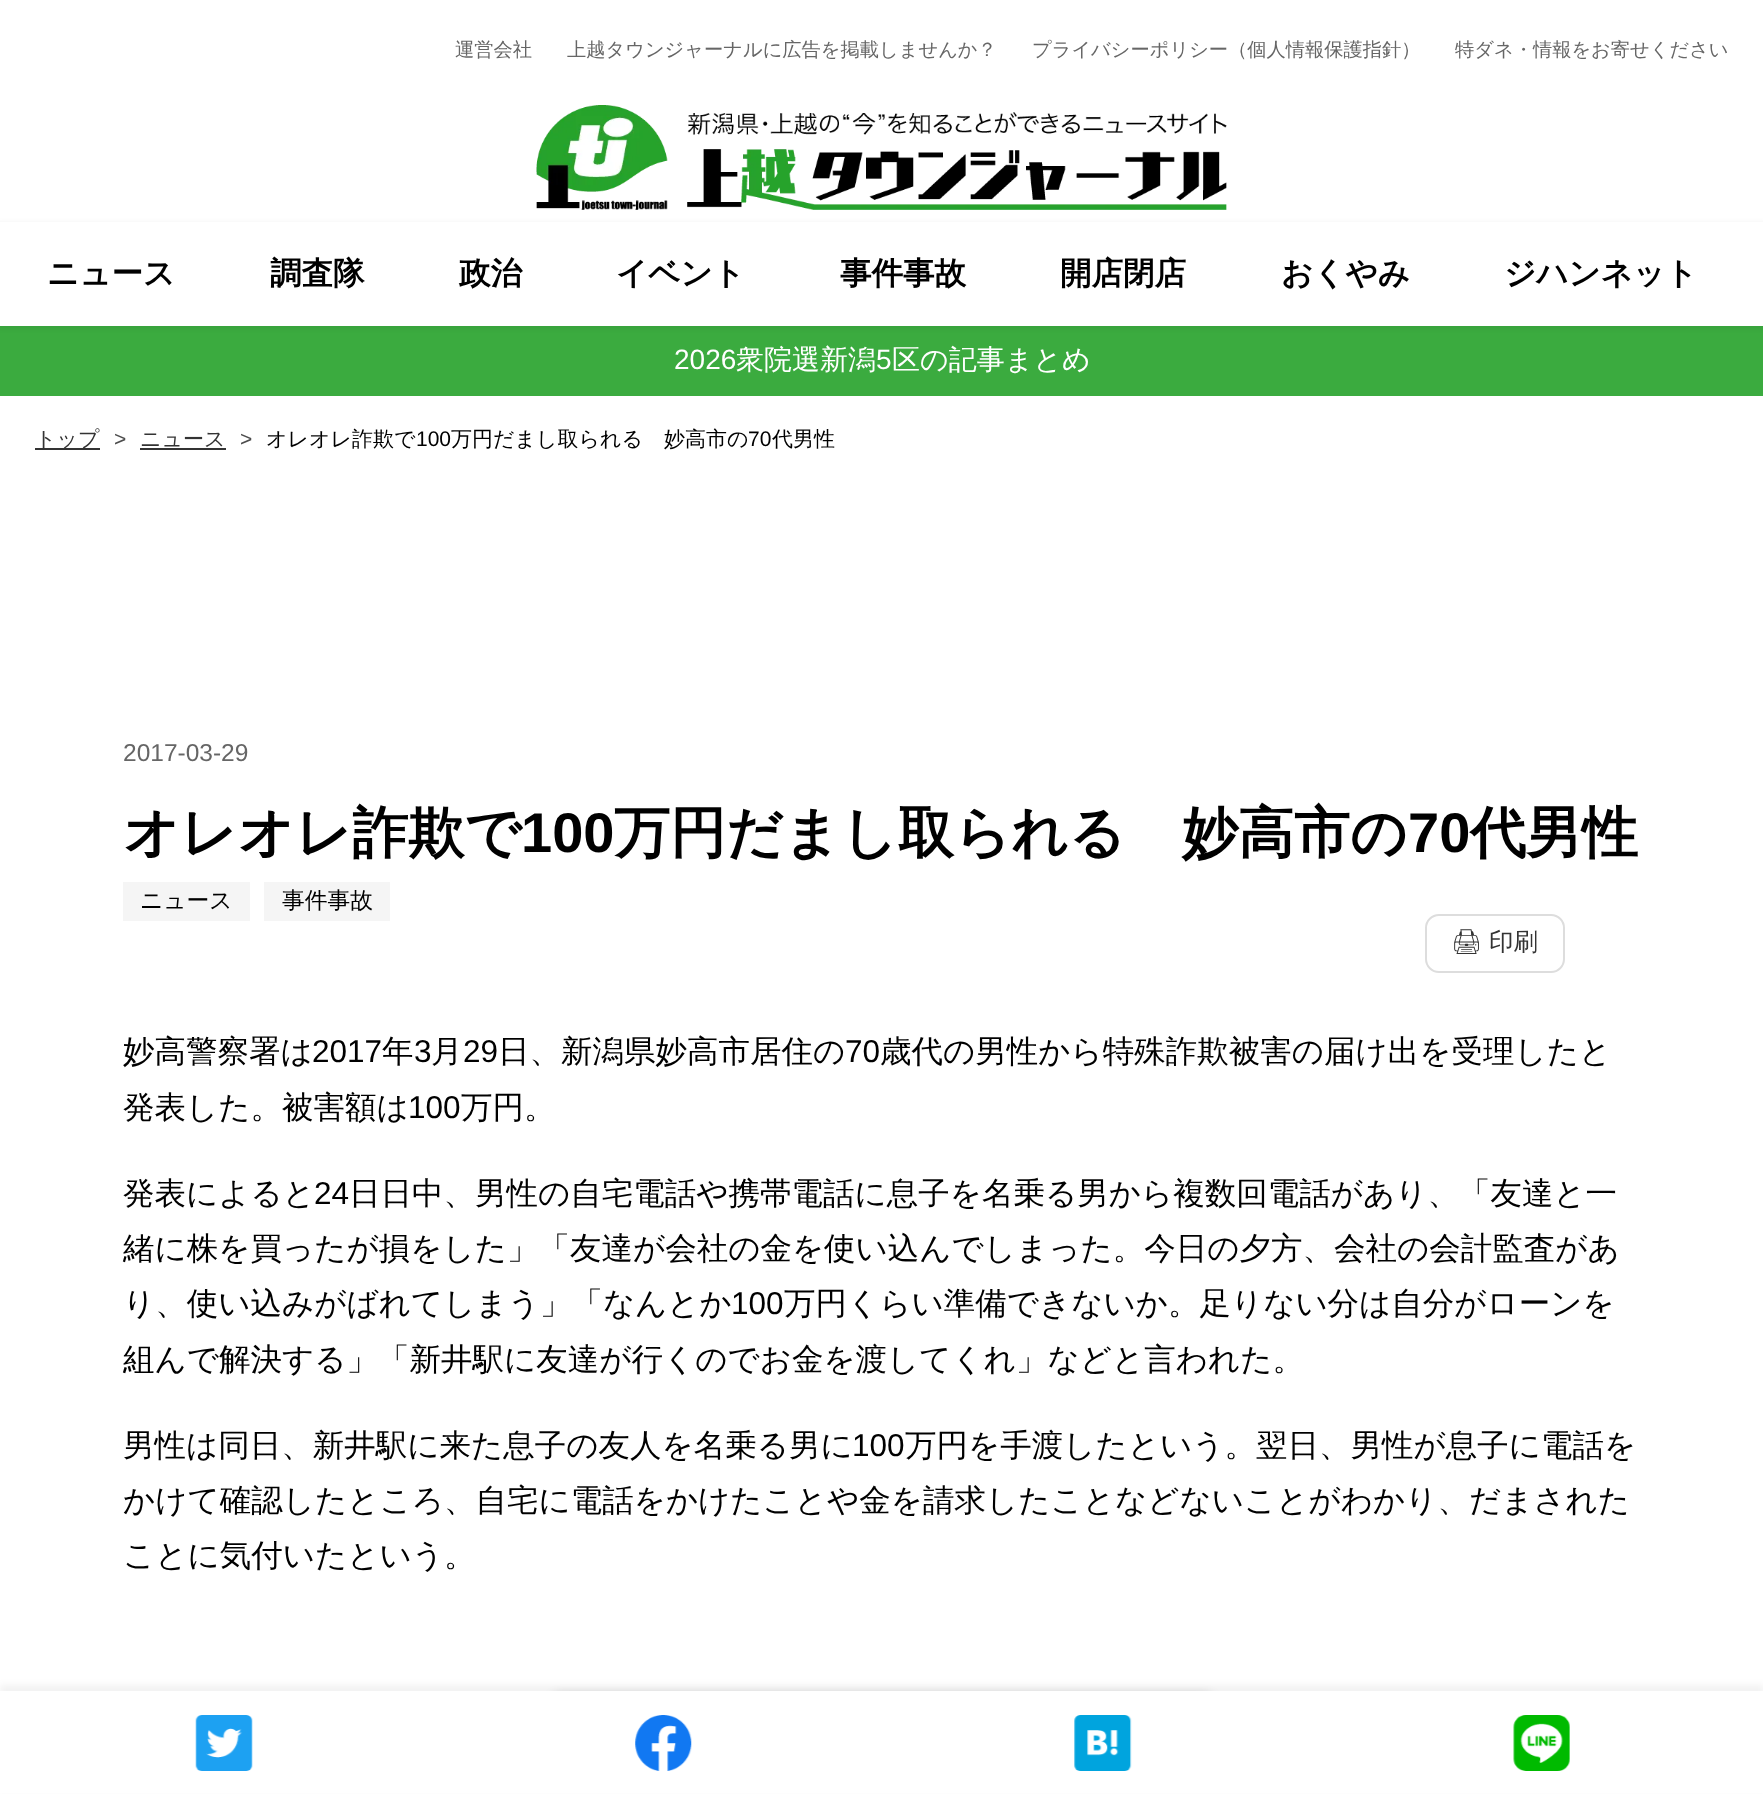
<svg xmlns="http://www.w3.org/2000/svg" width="1763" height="1794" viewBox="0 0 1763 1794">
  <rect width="100%" height="100%" fill="#fff"/>
  <image x="536" y="105" width="691" height="105" href="img/1.png"/>
  <path d="M0 326h1763v70H0z" fill="#3bab3f"/>
  <path d="M-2 222h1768v107H-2z" fill="#0000000d" filter="blur(2px)"/>
  <path d="M0 222h1763v104H0z" fill="#fff"/>
  <path d="M35 448h65v2H35z" fill="#333"/>
  <path d="M140 448h86v2H140z" fill="#333"/>
  <path d="M123 882h127v39H123z" fill="#f5f5f5"/>
  <path d="M264 882h126v39H264z" fill="#f5f5f5"/>
  <rect x="1426" y="915" width="138" height="57" rx="13" fill="none" stroke="#ddd" stroke-width="2"/>
  <rect x="550" y="1694" width="665" height="79" rx="11" fill="#00000033" filter="blur(5px)"/>
  <path d="M0 1685h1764v105H0z" fill="#0000000d" filter="blur(3.5px)"/>
  <path d="M0 1691h1763v102H0z" fill="#fff"/>
  <image x="195" y="1715" width="58" height="56" href="img/2.png"/>
  <image x="635" y="1715" width="57" height="56" href="img/3.png"/>
  <image x="1074" y="1715" width="58" height="56" href="img/4.png"/>
  <image x="1513" y="1715" width="57" height="56" href="img/5.png"/>
  <g font-family="WenQuanYi Zen Hei" font-size="19.25" font-weight="500" fill="#666">
    <text x="455" y="56">運営会社</text>
    <text x="567" y="56">上越タウンジャーナルに広告を掲載しませんか？</text>
    <text x="1032" y="56">プライバシーポリシー（個人情報保護指針）</text>
    <text x="1455" y="56">特ダネ・情報をお寄せください</text>
  </g>
  <g font-family="WenQuanYi Zen Hei" font-size="31.5" font-weight="bold" fill="#000">
    <text x="47" y="284">ニュース</text>
    <text x="270" y="284">調査隊</text>
    <text x="459" y="284">政治</text>
    <text x="616" y="284">イベント</text>
    <text x="840" y="284">事件事故</text>
    <text x="1060" y="284">開店閉店</text>
    <text x="1281" y="284">おくやみ</text>
    <text x="1504" y="284">ジハンネット</text>
  </g>
  <text x="674" y="369" font-family="Liberation Sans" font-size="28" fill="#fff">2026</text>
  <text x="736" y="369" font-family="WenQuanYi Zen Hei" font-size="28" font-weight="500" fill="#fff">衆院選新潟</text>
  <text x="876" y="369" font-family="Liberation Sans" font-size="28" fill="#fff">5</text>
  <text x="892" y="369" font-family="WenQuanYi Zen Hei" font-size="28" font-weight="500" fill="#fff">区の記事まとめ</text>
  <text x="35" y="446" font-family="WenQuanYi Zen Hei" font-size="21" font-weight="500" fill="#333">トップ</text>
  <text x="114" y="446" font-family="Liberation Sans" font-size="21" fill="#4d4d4d">&gt;</text>
  <text x="140" y="446" font-family="WenQuanYi Zen Hei" font-size="21" font-weight="500" fill="#333">ニュース</text>
  <text x="240" y="446" font-family="Liberation Sans" font-size="21" fill="#4d4d4d">&gt;</text>
  <text x="266" y="446" font-family="WenQuanYi Zen Hei" font-size="21" font-weight="500" fill="#000">オレオレ詐欺で</text>
  <text x="416" y="446" font-family="Liberation Sans" font-size="21" fill="#000">100</text>
  <text x="451" y="446" font-family="WenQuanYi Zen Hei" font-size="21" font-weight="500" fill="#000">万円だまし取られる　妙高市の</text>
  <text x="748" y="446" font-family="Liberation Sans" font-size="21" fill="#000">70</text>
  <text x="772" y="446" font-family="WenQuanYi Zen Hei" font-size="21" font-weight="500" fill="#000">代男性</text>
  <text x="123" y="761" font-family="Liberation Sans" font-size="24.5" fill="#666">2017-03-29</text>
  <text x="123" y="852" font-family="WenQuanYi Zen Hei" font-size="56" font-weight="bold" fill="#000">オレオレ詐欺で</text>
  <text x="521" y="852" font-family="Liberation Sans" font-size="56" font-weight="bold" fill="#000">100</text>
  <text x="614" y="852" font-family="WenQuanYi Zen Hei" font-size="56" font-weight="bold" fill="#000">万円だまし取られる　妙高市の</text>
  <text x="1408" y="852" font-family="Liberation Sans" font-size="56" font-weight="bold" fill="#000">70</text>
  <text x="1470" y="852" font-family="WenQuanYi Zen Hei" font-size="56" font-weight="bold" fill="#000">代男性</text>
  <g font-family="WenQuanYi Zen Hei" font-size="22.75" font-weight="500" fill="#000">
    <text x="140" y="908">ニュース</text>
    <text x="282" y="908">事件事故</text>
  </g>
  <text x="1451" y="950" font-family="Noto Emoji" font-size="24.5" fill="#333">🖨</text>
  <text x="1489" y="950" font-family="WenQuanYi Zen Hei" font-size="24.5" font-weight="500" fill="#333">印刷</text>
  <text x="123" y="1062" font-family="WenQuanYi Zen Hei" font-size="31.5" font-weight="500" fill="#000">妙高警察署は</text>
  <text x="312" y="1062" font-family="Liberation Sans" font-size="31.5" fill="#000">2017</text>
  <text x="382" y="1062" font-family="WenQuanYi Zen Hei" font-size="31.5" font-weight="500" fill="#000">年</text>
  <text x="414" y="1062" font-family="Liberation Sans" font-size="31.5" fill="#000">3</text>
  <text x="431" y="1062" font-family="WenQuanYi Zen Hei" font-size="31.5" font-weight="500" fill="#000">月</text>
  <text x="463" y="1062" font-family="Liberation Sans" font-size="31.5" fill="#000">29</text>
  <text x="498" y="1062" font-family="WenQuanYi Zen Hei" font-size="31.5" font-weight="500" fill="#000">日、新潟県妙高市居住の</text>
  <text x="845" y="1062" font-family="Liberation Sans" font-size="31.5" fill="#000">70</text>
  <g font-family="WenQuanYi Zen Hei" font-size="31.5" font-weight="500" fill="#000">
    <text x="880" y="1062">歳代の男性から特殊詐欺被害の届け出を受理したと</text>
    <text x="123" y="1118">発表した。被害額は</text>
  </g>
  <text x="408" y="1118" font-family="Liberation Sans" font-size="31.5" fill="#000">100</text>
  <g font-family="WenQuanYi Zen Hei" font-size="31.5" font-weight="500" fill="#000">
    <text x="461" y="1118">万円。</text>
    <text x="123" y="1204">発表によると</text>
  </g>
  <text x="314" y="1204" font-family="Liberation Sans" font-size="31.5" fill="#000">24</text>
  <g font-family="WenQuanYi Zen Hei" font-size="31.5" font-weight="500" fill="#000">
    <text x="349" y="1204">日日中、男性の自宅電話や携帯電話に息子を名乗る男から複数回電話があり、「友達と一</text>
    <text x="123" y="1259">緒に株を買ったが損をした」「友達が会社の金を使い込んでしまった。今日の夕方、会社の会計監査があ</text>
    <text x="123" y="1314">り、使い込みがばれてしまう」「なんとか</text>
  </g>
  <text x="731" y="1314" font-family="Liberation Sans" font-size="31.5" fill="#000">100</text>
  <g font-family="WenQuanYi Zen Hei" font-size="31.5" font-weight="500" fill="#000">
    <text x="784" y="1314">万円くらい準備できないか。足りない分は自分がローンを</text>
    <text x="123" y="1370">組んで解決する」「新井駅に友達が行くのでお金を渡してくれ」などと言われた。</text>
    <text x="123" y="1456">男性は同日、新井駅に来た息子の友人を名乗る男に</text>
  </g>
  <text x="852" y="1456" font-family="Liberation Sans" font-size="31.5" fill="#000">100</text>
  <g font-family="WenQuanYi Zen Hei" font-size="31.5" font-weight="500" fill="#000">
    <text x="905" y="1456">万円を手渡したという。翌日、男性が息子に電話を</text>
    <text x="123" y="1511">かけて確認したところ、自宅に電話をかけたことや金を請求したことなどないことがわかり、だまされた</text>
    <text x="123" y="1566">ことに気付いたという。</text>
  </g>
</svg>
